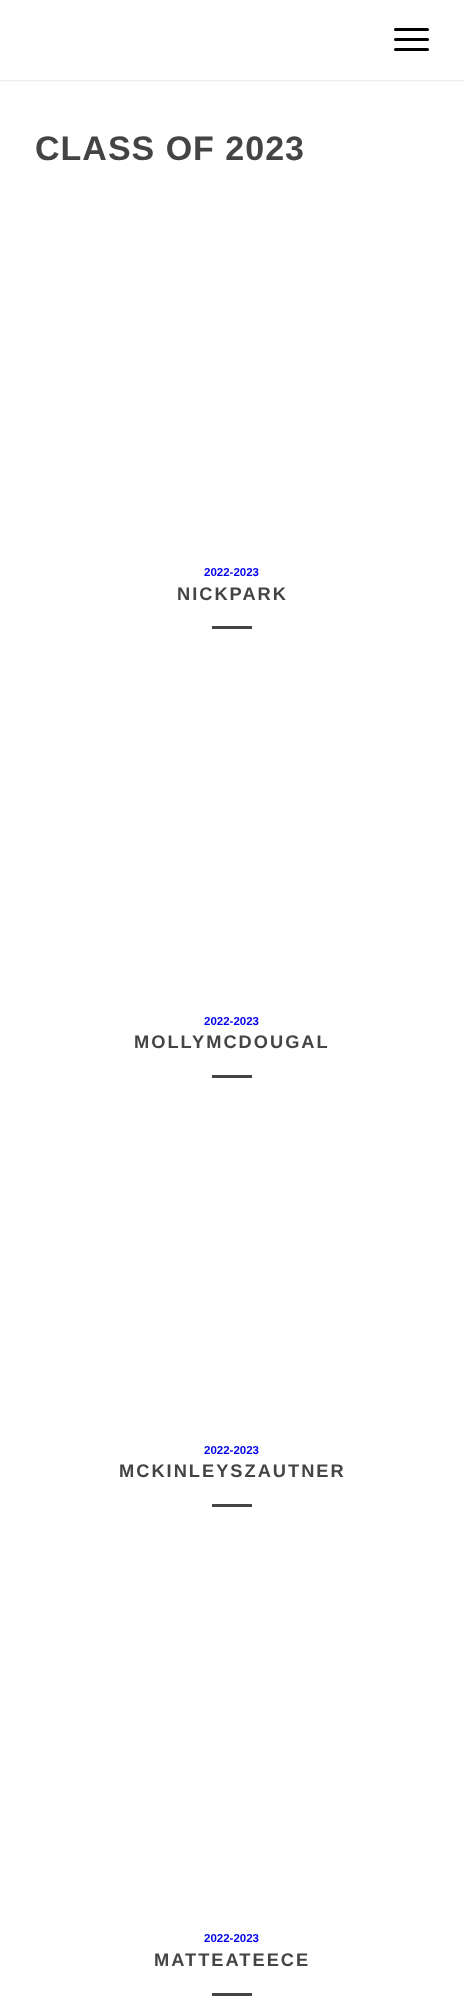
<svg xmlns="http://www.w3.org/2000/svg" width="464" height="2012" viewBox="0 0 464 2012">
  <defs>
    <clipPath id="clip1"><path d="M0 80h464v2H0z"/></clipPath>
  </defs>
  <rect width="100%" height="100%" fill="#fff"/>
  <g clip-path="url(#clip1)">
    <path d="M-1 -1h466v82H-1z" fill="#0000001a" filter="blur(1px)"/>
  </g>
  <rect x="394" y="38" width="35" height="3" rx="1.5" fill="#000"/>
  <rect x="394" y="28" width="35" height="3" rx="1.5" fill="#000"/>
  <rect x="394" y="48" width="35" height="3" rx="1.5" fill="#000"/>
  <path d="M212 626h40v3H212z" fill="#444"/>
  <path d="M212 1075h40v3H212z" fill="#444"/>
  <path d="M212 1504h40v3H212z" fill="#444"/>
  <path d="M212 1993h40v3H212z" fill="#444"/>
  <text x="35" y="160" font-family="Liberation Sans" font-size="34" font-weight="bold" letter-spacing="1" fill="#444">CLASS OF 2023</text>
  <text x="204" y="576" font-family="Liberation Sans" font-size="11.5" font-weight="bold" fill="#00e">2022-2023</text>
  <text x="177" y="600" font-family="Liberation Sans" font-size="18.25" font-weight="bold" letter-spacing="2" fill="#444">NICKPARK</text>
  <text x="204" y="1025" font-family="Liberation Sans" font-size="11.5" font-weight="bold" fill="#00e">2022-2023</text>
  <text x="134" y="1048" font-family="Liberation Sans" font-size="18.25" font-weight="bold" letter-spacing="2" fill="#444">MOLLYMCDOUGAL</text>
  <text x="204" y="1454" font-family="Liberation Sans" font-size="11.5" font-weight="bold" fill="#00e">2022-2023</text>
  <text x="119" y="1477" font-family="Liberation Sans" font-size="18.25" font-weight="bold" letter-spacing="2" fill="#444">MCKINLEYSZAUTNER</text>
  <text x="204" y="1942" font-family="Liberation Sans" font-size="11.5" font-weight="bold" fill="#00e">2022-2023</text>
  <text x="154" y="1966" font-family="Liberation Sans" font-size="18.25" font-weight="bold" letter-spacing="2" fill="#444">MATTEATEECE</text>
</svg>
